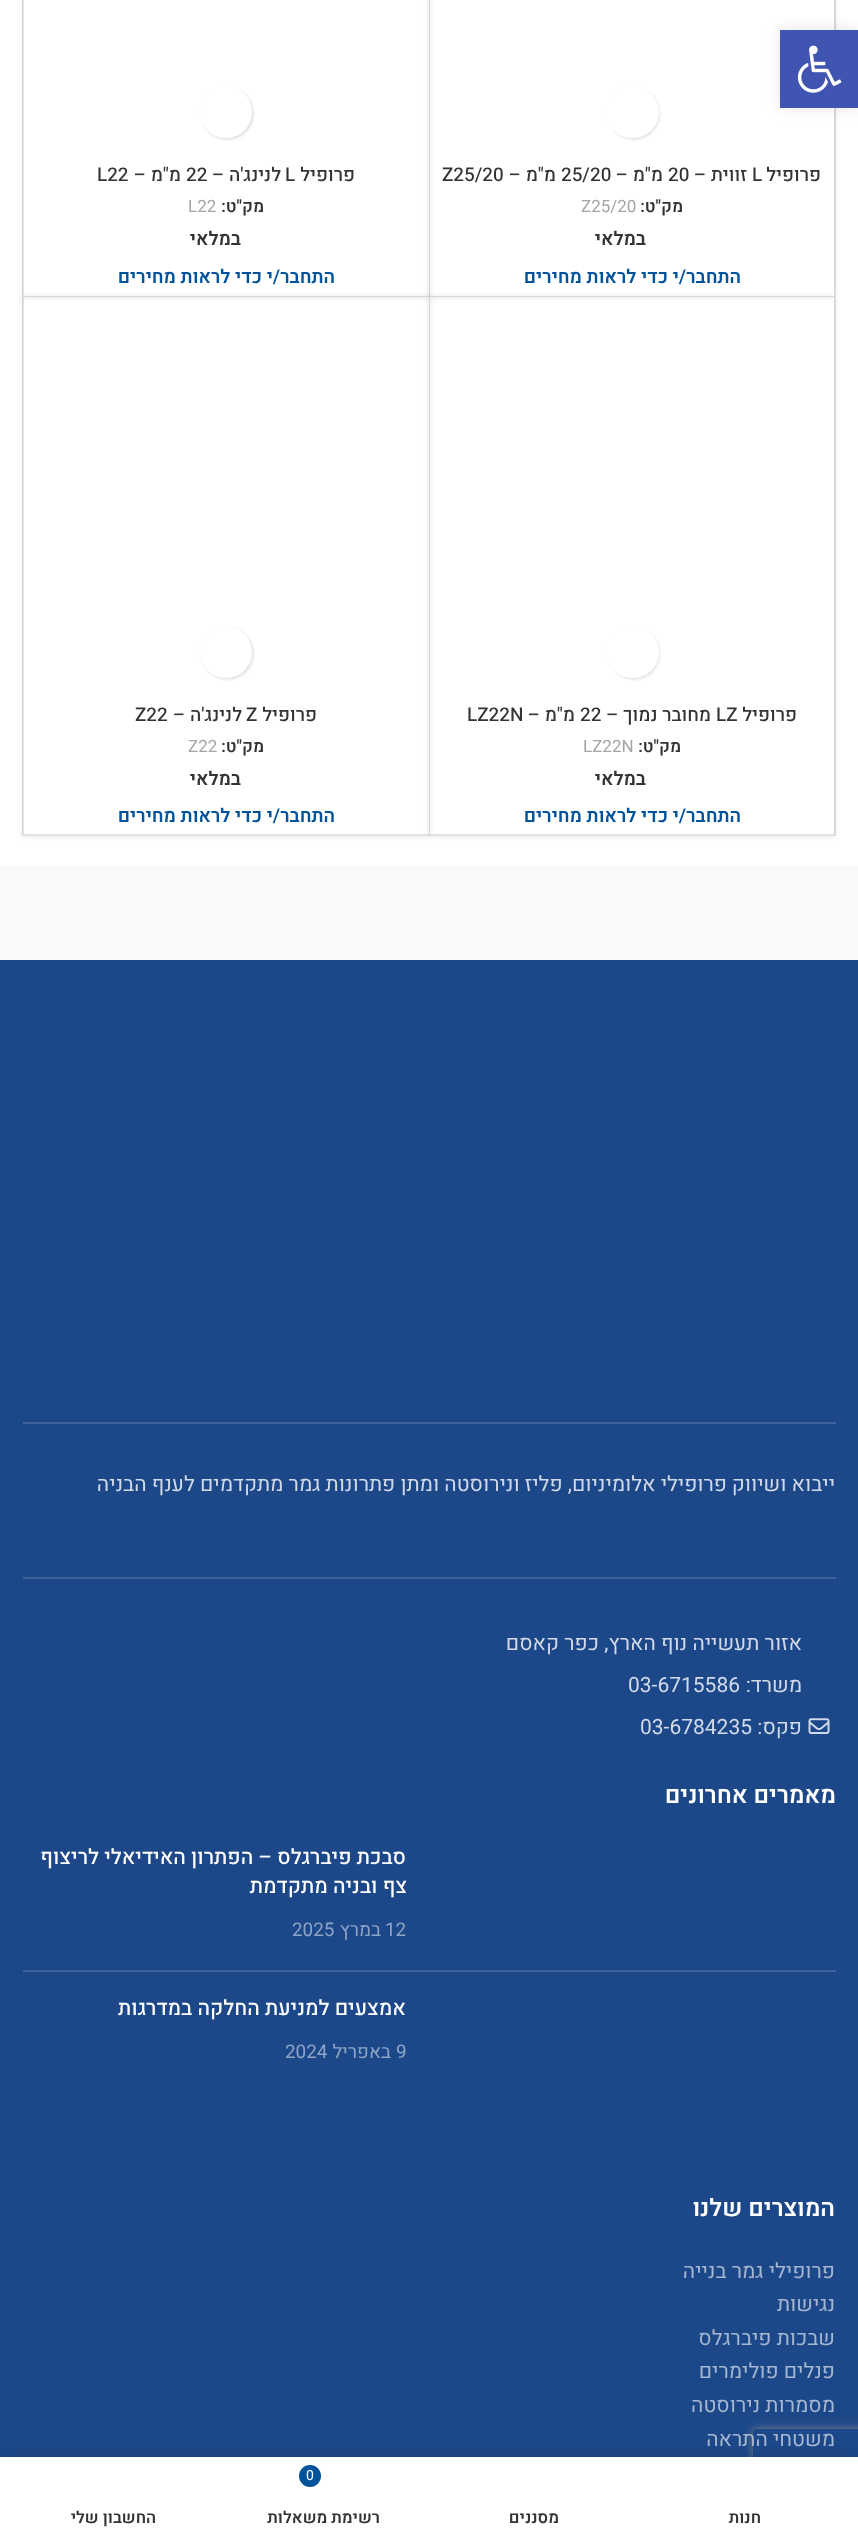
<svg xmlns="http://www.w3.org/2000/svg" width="858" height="2539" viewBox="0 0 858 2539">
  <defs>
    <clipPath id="clip1"><path d="M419 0H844V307H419ZM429-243H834V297H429Z" clip-rule="evenodd"/></clipPath>
    <clipPath id="clip2"><path d="M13 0H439V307H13ZM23-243H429V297H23Z" clip-rule="evenodd"/></clipPath>
    <clipPath id="clip3"><path d="M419 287H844V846H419ZM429 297H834V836H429Z" clip-rule="evenodd"/></clipPath>
    <clipPath id="clip4"><path d="M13 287H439V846H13ZM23 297H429V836H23Z" clip-rule="evenodd"/></clipPath>
    <clipPath id="clip5"><path d="M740 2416H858V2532H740ZM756 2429H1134C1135.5 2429 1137 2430.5 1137 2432V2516C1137 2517.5 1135.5 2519 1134 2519H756C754.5 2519 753 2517.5 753 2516V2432C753 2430.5 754.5 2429 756 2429Z" clip-rule="evenodd"/></clipPath>
  </defs>
  <rect width="100%" height="100%" fill="#fff"/>
  <path d="M834 0h2v836H834z" fill="#e4e4e4"/>
  <path d="M780 30h78v78H780z" fill="#0000001a" filter="blur(7.5px)"/>
  <g clip-path="url(#clip1)">
    <path d="M429 -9h405v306H429z" fill="#0000001f" filter="blur(3px)"/>
  </g>
  <path d="M780 30h78v78H780z" fill="#4054b2"/>
  <image x="797" y="45" width="45" height="48" href="img/1.png"/>
  <path d="M834 297H429L430 296H834Z" fill="#e4e4e4"/>
  <path d="M429 297V-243H430V296Z" fill="#0000001c"/>
  <rect x="608" y="87" width="52" height="53" rx="26" fill="#0000001a" filter="blur(1px)"/>
  <rect x="606" y="86" width="53" height="52" rx="26" fill="#fff"/>
  <g clip-path="url(#clip2)">
    <path d="M23 -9h406v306H23z" fill="#0000001f" filter="blur(3px)"/>
  </g>
  <path d="M429 297H22L24 296H429Z" fill="#0000001c"/>
  <path d="M22 297V-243H24V296Z" fill="#0000001c"/>
  <rect x="201" y="87" width="53" height="53" rx="26.5" fill="#0000001a" filter="blur(1px)"/>
  <circle cx="226" cy="112" r="26" fill="#fff"/>
  <g clip-path="url(#clip3)">
    <path d="M429 297h405v539H429z" fill="#0000001f" filter="blur(3px)"/>
  </g>
  <path d="M834 836H429L430 834H834Z" fill="#0000001c"/>
  <path d="M429 836V297H430V834Z" fill="#0000001c"/>
  <rect x="608" y="627" width="52" height="53" rx="26" fill="#0000001a" filter="blur(1px)"/>
  <rect x="606" y="626" width="53" height="52" rx="26" fill="#fff"/>
  <g clip-path="url(#clip4)">
    <path d="M23 297h406v539H23z" fill="#0000001f" filter="blur(3px)"/>
  </g>
  <path d="M429 836H22L24 834H429Z" fill="#0000001c"/>
  <path d="M22 836V297H24V834Z" fill="#0000001c"/>
  <rect x="201" y="627" width="53" height="53" rx="26.5" fill="#0000001a" filter="blur(1px)"/>
  <circle cx="226" cy="652" r="26" fill="#fff"/>
  <path d="M0 866h858v94H0z" fill="#f9f9f9"/>
  <path d="M0 960h858v1497H0z" fill="#1c488a"/>
  <path d="M23 1422h813v2H23z" fill="#3e639c"/>
  <path d="M23 1577h813v2H23z" fill="#3e639c"/>
  <image x="808" y="1718" width="22" height="16" href="img/2.png"/>
  <path d="M23 1970h813v2H23z" fill="#3e639c"/>
  <g clip-path="url(#clip5)">
    <rect x="753" y="2429" width="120" height="90" rx="3" fill="#808080" filter="blur(4px)"/>
  </g>
  <path d="M0 2457h858v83H0z" fill="#0000001f" filter="blur(7px)"/>
  <path d="M0 2457h858v82H0z" fill="#fff"/>
  <circle cx="310" cy="2476" r="11" fill="#00529b"/>
  <text x="821" y="181" font-family="Heebo" font-size="18.9" font-weight="500" direction="rtl" fill="#333">פרופיל</text>
  <text x="752" y="181" font-family="Heebo" font-size="18.9" font-weight="500" fill="#333">L</text>
  <text x="747" y="181" font-family="Heebo" font-size="18.9" font-weight="500" direction="rtl" fill="#333">זווית –</text>
  <text x="668" y="181" font-family="Heebo" font-size="18.9" font-weight="500" fill="#333">20</text>
  <text x="663" y="181" font-family="Heebo" font-size="18.9" font-weight="500" direction="rtl" fill="#333">מ"מ –</text>
  <text x="561" y="181" font-family="Heebo" font-size="18.9" font-weight="500" fill="#333">25/20</text>
  <text x="556" y="181" font-family="Heebo" font-size="18.9" font-weight="500" direction="rtl" fill="#333">מ"מ –</text>
  <text x="442" y="181" font-family="Heebo" font-size="18.9" font-weight="500" fill="#333">Z25/20</text>
  <text x="683" y="212" font-family="Heebo" font-size="17" font-weight="600" direction="rtl" fill="#333">מק"ט:</text>
  <text x="581" y="212" font-family="Heebo" font-size="17" fill="#a5a5a5">Z25/20</text>
  <text x="646" y="245" font-family="Heebo" font-size="18.9" font-weight="600" direction="rtl" fill="#333">במלאי</text>
  <text x="741" y="283" font-family="Heebo" font-size="18.9" font-weight="600" direction="rtl" fill="#00529b">התחבר/י כדי לראות מחירים</text>
  <text x="355" y="181" font-family="Heebo" font-size="18.9" font-weight="500" direction="rtl" fill="#333">פרופיל</text>
  <text x="285" y="181" font-family="Heebo" font-size="18.9" font-weight="500" fill="#333">L</text>
  <text x="281" y="181" font-family="Heebo" font-size="18.9" font-weight="500" direction="rtl" fill="#333">לנינג'ה –</text>
  <text x="186" y="181" font-family="Heebo" font-size="18.9" font-weight="500" fill="#333">22</text>
  <text x="181" y="181" font-family="Heebo" font-size="18.9" font-weight="500" direction="rtl" fill="#333">מ"מ –</text>
  <text x="97" y="181" font-family="Heebo" font-size="18.9" font-weight="500" fill="#333">L22</text>
  <text x="264" y="212" font-family="Heebo" font-size="17" font-weight="600" direction="rtl" fill="#333">מק"ט:</text>
  <text x="188" y="212" font-family="Heebo" font-size="17" fill="#a5a5a5">L22</text>
  <text x="241" y="245" font-family="Heebo" font-size="18.9" font-weight="600" direction="rtl" fill="#333">במלאי</text>
  <text x="335" y="283" font-family="Heebo" font-size="18.9" font-weight="600" direction="rtl" fill="#00529b">התחבר/י כדי לראות מחירים</text>
  <text x="797" y="721" font-family="Heebo" font-size="18.9" font-weight="500" direction="rtl" fill="#333">פרופיל</text>
  <text x="716" y="721" font-family="Heebo" font-size="18.9" font-weight="500" fill="#333">LZ</text>
  <text x="711" y="721" font-family="Heebo" font-size="18.9" font-weight="500" direction="rtl" fill="#333">מחובר נמוך –</text>
  <text x="580" y="721" font-family="Heebo" font-size="18.9" font-weight="500" fill="#333">22</text>
  <text x="575" y="721" font-family="Heebo" font-size="18.9" font-weight="500" direction="rtl" fill="#333">מ"מ –</text>
  <text x="467" y="721" font-family="Heebo" font-size="18.9" font-weight="500" fill="#333">LZ22N</text>
  <text x="681" y="752" font-family="Heebo" font-size="17" font-weight="600" direction="rtl" fill="#333">מק"ט:</text>
  <text x="583" y="752" font-family="Heebo" font-size="17" fill="#a5a5a5">LZ22N</text>
  <text x="646" y="785" font-family="Heebo" font-size="18.9" font-weight="600" direction="rtl" fill="#333">במלאי</text>
  <text x="741" y="822" font-family="Heebo" font-size="18.9" font-weight="600" direction="rtl" fill="#00529b">התחבר/י כדי לראות מחירים</text>
  <text x="317" y="721" font-family="Heebo" font-size="18.9" font-weight="500" direction="rtl" fill="#333">פרופיל</text>
  <text x="246" y="721" font-family="Heebo" font-size="18.9" font-weight="500" fill="#333">Z</text>
  <text x="242" y="721" font-family="Heebo" font-size="18.9" font-weight="500" direction="rtl" fill="#333">לנינג'ה –</text>
  <text x="135" y="721" font-family="Heebo" font-size="18.9" font-weight="500" fill="#333">Z22</text>
  <text x="264" y="752" font-family="Heebo" font-size="17" font-weight="600" direction="rtl" fill="#333">מק"ט:</text>
  <text x="188" y="752" font-family="Heebo" font-size="17" fill="#a5a5a5">Z22</text>
  <text x="241" y="785" font-family="Heebo" font-size="18.9" font-weight="600" direction="rtl" fill="#333">במלאי</text>
  <text x="335" y="822" font-family="Heebo" font-size="18.9" font-weight="600" direction="rtl" fill="#00529b">התחבר/י כדי לראות מחירים</text>
  <g font-family="Heebo" font-size="21" direction="rtl" fill="#d2dae8">
    <text x="835" y="1491">ייבוא ושיווק</text>
    <text x="727" y="1491">פרופילי אלומיניום, פליז ונירוסטה ומתן פתרונות גמר מתקדמים לענף הבניה</text>
    <text x="802" y="1650">אזור תעשייה נוף הארץ, כפר קאסם</text>
    <text x="802" y="1692">משרד:</text>
  </g>
  <text x="628" y="1692" font-family="Heebo" font-size="21" fill="#d2dae8">03-6715586</text>
  <text x="802" y="1734" font-family="Heebo" font-size="21" direction="rtl" fill="#d2dae8">פקס:</text>
  <text x="640" y="1734" font-family="Heebo" font-size="21" fill="#d2dae8">03-6784235</text>
  <text x="836" y="1803" font-family="Heebo" font-size="24" font-weight="600" direction="rtl" fill="#fff">מאמרים אחרונים</text>
  <g font-family="Heebo" font-size="21" font-weight="500" direction="rtl" fill="#fff">
    <text x="406" y="1864">סבכת פיברגלס – הפתרון האידיאלי לריצוף</text>
    <text x="407" y="1893">צף ובניה מתקדמת</text>
  </g>
  <text x="385" y="1936" font-family="Heebo" font-size="18.9" fill="#8ea4c5">12</text>
  <text x="381" y="1936" font-family="Heebo" font-size="18.9" direction="rtl" fill="#8ea4c5">במרץ</text>
  <text x="292" y="1936" font-family="Heebo" font-size="18.9" fill="#8ea4c5">2025</text>
  <text x="406" y="2015" font-family="Heebo" font-size="21" font-weight="500" direction="rtl" fill="#fff">אמצעים למניעת החלקה במדרגות</text>
  <text x="396" y="2058" font-family="Heebo" font-size="18.9" fill="#8ea4c5">9</text>
  <text x="391" y="2058" font-family="Heebo" font-size="18.9" direction="rtl" fill="#8ea4c5">באפריל</text>
  <text x="285" y="2058" font-family="Heebo" font-size="18.9" fill="#8ea4c5">2024</text>
  <text x="835" y="2216" font-family="Heebo" font-size="24" font-weight="600" direction="rtl" fill="#fff">המוצרים שלנו</text>
  <g font-family="Heebo" font-size="21" direction="rtl" fill="#a4b6d0">
    <text x="835" y="2278">פרופילי גמר בנייה</text>
    <text x="835" y="2311">נגישות</text>
    <text x="835" y="2345">שבכות פיברגלס</text>
    <text x="835" y="2378">פנלים פולימרים</text>
    <text x="835" y="2412">מסמרות נירוסטה</text>
    <text x="835" y="2446">משטחי התראה</text>
  </g>
  <g font-family="Heebo" font-size="16.5" font-weight="600" direction="rtl" fill="#333">
    <text x="761" y="2523">חנות</text>
    <text x="559" y="2523">מסננים</text>
  </g>
  <text x="306" y="2480" font-family="Heebo" font-size="14" fill="#fff">0</text>
  <g font-family="Heebo" font-size="16.5" font-weight="600" direction="rtl" fill="#333">
    <text x="380" y="2523">רשימת משאלות</text>
    <text x="156" y="2523">החשבון שלי</text>
  </g>
</svg>
